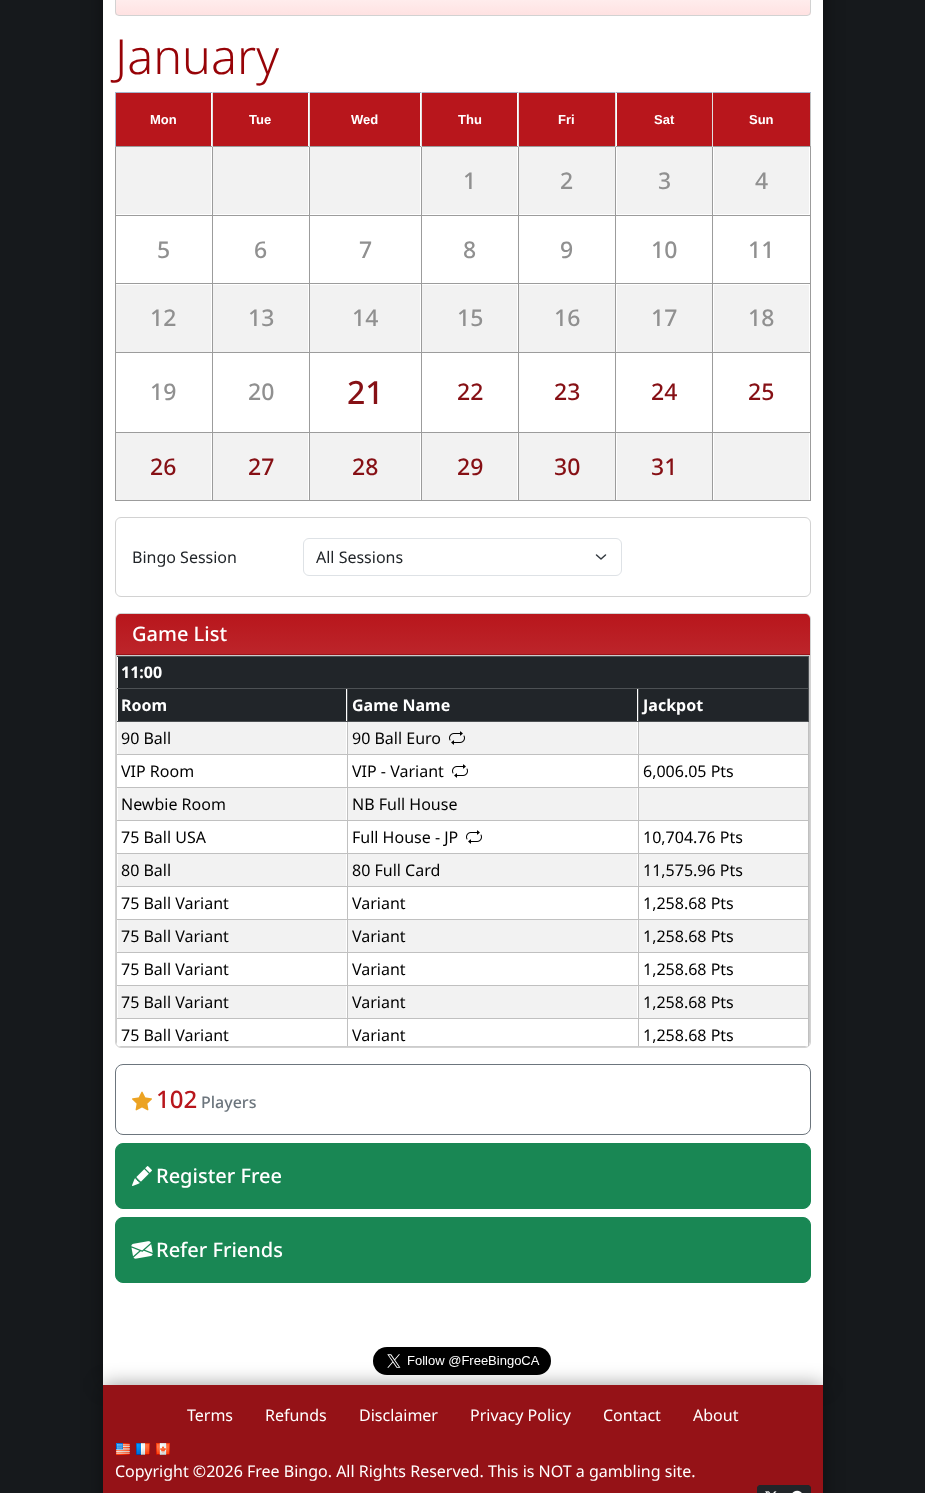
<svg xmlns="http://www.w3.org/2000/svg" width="925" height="1493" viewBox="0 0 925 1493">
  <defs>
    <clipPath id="clip1"><rect x="115" y="-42" width="696" height="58" rx="4"/></clipPath>
    <linearGradient id="g1" gradientUnits="userSpaceOnUse" x1="463" y1="-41" x2="463" y2="15"><stop offset="0.25" stop-color="#fff"/><stop offset="1" stop-color="#ffe2e2"/></linearGradient>
    <linearGradient id="g2" gradientUnits="userSpaceOnUse" x1="463" y1="614" x2="463" y2="1254"><stop offset="0" stop-color="#b8161c"/><stop offset="1" stop-color="#fff"/></linearGradient>
  </defs>
  <rect width="100%" height="100%" fill="#16191c"/>
  <path d="M103 -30h720v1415H103z" fill="#00000066" filter="blur(10px)"/>
  <path d="M103 0h720v1385H103z" fill="#fff"/>
  <g clip-path="url(#clip1)">
    <path d="M115 0h696v15H115z" fill="url(#g1)"/>
  </g>
  <rect x="115.5" y="-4.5" width="695" height="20" rx="3.5" fill="none" stroke="#d2d2d2"/>
  <path d="M810 92h1v54H810z" fill="#c0c0c0"/>
  <path d="M115 92h696v1H115z" fill="#a6b5cc"/>
  <path d="M116 93h95v53H116z" fill="#b8161c"/>
  <path d="M712 146h99v1H712z" fill="#9c9c9c"/>
  <path d="M712 215h99v1H712z" fill="#9c9c9c"/>
  <path d="M712 283h99v1H712z" fill="#9c9c9c"/>
  <path d="M712 352h99v1H712z" fill="#9c9c9c"/>
  <path d="M712 432h99v1H712z" fill="#9c9c9c"/>
  <path d="M810 432h1v69H810z" fill="#9c9c9c"/>
  <path d="M712 500h99v1H712z" fill="#9c9c9c"/>
  <path d="M712 432h1v69H712z" fill="#9c9c9c"/>
  <path d="M615 432h98v1H615z" fill="#9c9c9c"/>
  <path d="M712 352h1v81H712z" fill="#9c9c9c"/>
  <path d="M615 352h98v1H615z" fill="#9c9c9c"/>
  <path d="M712 283h1v70H712z" fill="#9c9c9c"/>
  <path d="M615 283h98v1H615z" fill="#9c9c9c"/>
  <path d="M712 215h1v69H712z" fill="#9c9c9c"/>
  <path d="M615 215h98v1H615z" fill="#9c9c9c"/>
  <path d="M712 146h1v70H712z" fill="#9c9c9c"/>
  <path d="M615 146h98v1H615z" fill="#9c9c9c"/>
  <path d="M615 500h98v1H615z" fill="#9c9c9c"/>
  <path d="M615 432h1v69H615z" fill="#9c9c9c"/>
  <path d="M518 432h98v1H518z" fill="#9c9c9c"/>
  <path d="M615 352h1v81H615z" fill="#9c9c9c"/>
  <path d="M518 352h98v1H518z" fill="#9c9c9c"/>
  <path d="M615 283h1v70H615z" fill="#9c9c9c"/>
  <path d="M518 283h98v1H518z" fill="#9c9c9c"/>
  <path d="M615 215h1v69H615z" fill="#9c9c9c"/>
  <path d="M518 215h98v1H518z" fill="#9c9c9c"/>
  <path d="M615 146h1v70H615z" fill="#9c9c9c"/>
  <path d="M518 146h98v1H518z" fill="#9c9c9c"/>
  <path d="M518 500h98v1H518z" fill="#9c9c9c"/>
  <path d="M518 432h1v69H518z" fill="#9c9c9c"/>
  <path d="M421 432h98v1H421z" fill="#9c9c9c"/>
  <path d="M518 352h1v81H518z" fill="#9c9c9c"/>
  <path d="M421 352h98v1H421z" fill="#9c9c9c"/>
  <path d="M518 283h1v70H518z" fill="#9c9c9c"/>
  <path d="M421 283h98v1H421z" fill="#9c9c9c"/>
  <path d="M518 215h1v69H518z" fill="#9c9c9c"/>
  <path d="M421 215h98v1H421z" fill="#9c9c9c"/>
  <path d="M518 146h1v70H518z" fill="#9c9c9c"/>
  <path d="M421 146h98v1H421z" fill="#9c9c9c"/>
  <path d="M421 500h98v1H421z" fill="#9c9c9c"/>
  <path d="M421 432h1v69H421z" fill="#9c9c9c"/>
  <path d="M309 432h113v1H309z" fill="#9c9c9c"/>
  <path d="M421 352h1v81H421z" fill="#9c9c9c"/>
  <path d="M309 352h113v1H309z" fill="#9c9c9c"/>
  <path d="M421 283h1v70H421z" fill="#9c9c9c"/>
  <path d="M309 283h113v1H309z" fill="#9c9c9c"/>
  <path d="M421 215h1v69H421z" fill="#9c9c9c"/>
  <path d="M309 215h113v1H309z" fill="#9c9c9c"/>
  <path d="M421 146h1v70H421z" fill="#9c9c9c"/>
  <path d="M309 146h113v1H309z" fill="#9c9c9c"/>
  <path d="M309 500h113v1H309z" fill="#9c9c9c"/>
  <path d="M309 432h1v69H309z" fill="#9c9c9c"/>
  <path d="M212 432h98v1H212z" fill="#9c9c9c"/>
  <path d="M309 352h1v81H309z" fill="#9c9c9c"/>
  <path d="M212 352h98v1H212z" fill="#9c9c9c"/>
  <path d="M309 283h1v70H309z" fill="#9c9c9c"/>
  <path d="M212 283h98v1H212z" fill="#9c9c9c"/>
  <path d="M309 215h1v69H309z" fill="#9c9c9c"/>
  <path d="M212 215h98v1H212z" fill="#9c9c9c"/>
  <path d="M309 146h1v70H309z" fill="#9c9c9c"/>
  <path d="M212 146h98v1H212z" fill="#9c9c9c"/>
  <path d="M212 500h98v1H212z" fill="#9c9c9c"/>
  <path d="M212 432h1v69H212z" fill="#9c9c9c"/>
  <path d="M115 432h98v1H115z" fill="#9c9c9c"/>
  <path d="M212 352h1v81H212z" fill="#9c9c9c"/>
  <path d="M115 352h98v1H115z" fill="#9c9c9c"/>
  <path d="M212 283h1v70H212z" fill="#9c9c9c"/>
  <path d="M115 283h98v1H115z" fill="#9c9c9c"/>
  <path d="M212 215h1v69H212z" fill="#9c9c9c"/>
  <path d="M115 215h98v1H115z" fill="#9c9c9c"/>
  <path d="M212 146h1v70H212z" fill="#9c9c9c"/>
  <path d="M115 146h98v1H115z" fill="#9c9c9c"/>
  <path d="M212 92h1v55H212z" fill="#dfdfdf"/>
  <path d="M115 500h98v1H115z" fill="#9c9c9c"/>
  <path d="M115 432h1v69H115z" fill="#9c9c9c"/>
  <path d="M115 352h1v81H115z" fill="#9c9c9c"/>
  <path d="M115 283h1v70H115z" fill="#9c9c9c"/>
  <path d="M115 215h1v69H115z" fill="#9c9c9c"/>
  <path d="M115 146h1v70H115z" fill="#9c9c9c"/>
  <path d="M115 92h1v55H115z" fill="#a6b5cc"/>
  <path d="M213 93h95v53H213z" fill="#b8161c"/>
  <path d="M309 92h1v55H309z" fill="#dfdfdf"/>
  <path d="M310 93h110v53H310z" fill="#b8161c"/>
  <path d="M421 92h1v55H421z" fill="#dfdfdf"/>
  <path d="M422 93h95v53H422z" fill="#b8161c"/>
  <path d="M518 92h1v55H518z" fill="#dfdfdf"/>
  <path d="M519 93h96v53H519z" fill="#b8161c"/>
  <path d="M615 92h1v55H615z" fill="#dfdfdf"/>
  <path d="M617 93h95v53H617z" fill="#b8161c"/>
  <path d="M712 92h1v55H712z" fill="#dfdfdf"/>
  <path d="M713 93h97v53H713z" fill="#b8161c"/>
  <path d="M116 147h95v67H116z" fill="#f2f2f2"/>
  <path d="M213 147h95v67H213z" fill="#f2f2f2"/>
  <path d="M310 147h110v67H310z" fill="#f2f2f2"/>
  <path d="M422 147h95v67H422z" fill="#f2f2f2"/>
  <path d="M519 147h96v67H519z" fill="#f2f2f2"/>
  <path d="M617 147h95v67H617z" fill="#f2f2f2"/>
  <path d="M714 147h95v67H714z" fill="#f2f2f2"/>
  <path d="M810 352h1v81H810z" fill="#9c9c9c"/>
  <path d="M810 283h1v70H810z" fill="#9c9c9c"/>
  <path d="M810 215h1v69H810z" fill="#9c9c9c"/>
  <path d="M810 146h1v70H810z" fill="#9c9c9c"/>
  <path d="M116 285h95v67H116z" fill="#f2f2f2"/>
  <path d="M213 285h95v67H213z" fill="#f2f2f2"/>
  <path d="M310 285h110v67H310z" fill="#f2f2f2"/>
  <path d="M422 285h95v67H422z" fill="#f2f2f2"/>
  <path d="M519 285h96v67H519z" fill="#f2f2f2"/>
  <path d="M617 285h95v67H617z" fill="#f2f2f2"/>
  <path d="M714 285h95v67H714z" fill="#f2f2f2"/>
  <path d="M116 433h95v67H116z" fill="#f2f2f2"/>
  <path d="M213 433h95v67H213z" fill="#f2f2f2"/>
  <path d="M310 433h110v67H310z" fill="#f2f2f2"/>
  <path d="M422 433h95v67H422z" fill="#f2f2f2"/>
  <path d="M519 433h96v67H519z" fill="#f2f2f2"/>
  <path d="M617 433h95v67H617z" fill="#f2f2f2"/>
  <path d="M714 433h95v67H714z" fill="#f2f2f2"/>
  <rect x="115.5" y="517.5" width="695" height="79" rx="5.5" fill="none" stroke="#d2d2d2"/>
  <path d="M596.5 555L601 559L605.5 555" fill="none" stroke="#343a40" stroke-width="1.5" stroke-linecap="round" stroke-linejoin="round"/>
  <rect x="303.5" y="538.5" width="318" height="37" rx="5.5" fill="none" stroke="#dee2e6"/>
  <rect x="115.5" y="613.5" width="695" height="434" rx="5.5" fill="none" stroke="#d2d2d2"/>
  <path d="M121 614H805C808 614 810 616 810 619V654H116V619C116 616 118 614 121 614Z" fill="url(#g2)"/>
  <path d="M116 654h694v1H116z" fill="#981217"/>
  <path d="M117 656H809V1045L810 1042V655H116V1042L117 1045ZM805 1047L808 1046H118L121 1047Z" fill="#ccc" fill-rule="evenodd"/>
  <path d="M117 656h692v1H117z" fill="#4d5154"/>
  <path d="M118 657h690v31H118z" fill="#212529"/>
  <path d="M117 688h692v1H117z" fill="#4d5154"/>
  <path d="M117 721h692v1H117z" fill="#4d5154"/>
  <path d="M118 689h228v32H118z" fill="#212529"/>
  <path d="M348 689h289v32H348z" fill="#212529"/>
  <path d="M117 754h692v1H117z" fill="#c0c0c0"/>
  <path d="M117 787h692v1H117z" fill="#c0c0c0"/>
  <path d="M117 820h692v1H117z" fill="#c0c0c0"/>
  <path d="M117 853h692v1H117z" fill="#c0c0c0"/>
  <path d="M117 886h692v1H117z" fill="#c0c0c0"/>
  <path d="M117 919h692v1H117z" fill="#c0c0c0"/>
  <path d="M117 952h692v1H117z" fill="#c0c0c0"/>
  <path d="M117 985h692v1H117z" fill="#c0c0c0"/>
  <path d="M117 1018h692v1H117z" fill="#c0c0c0"/>
  <path d="M347 721h1v325H347z" fill="#c0c0c0"/>
  <path d="M347 688h1v34H347z" fill="#4d5154"/>
  <path d="M639 689h169v32H639z" fill="#212529"/>
  <path d="M808 721h1v325H808z" fill="#c0c0c0"/>
  <path d="M808 656h1v66H808z" fill="#4d5154"/>
  <path d="M638 721h1v325H638z" fill="#c0c0c0"/>
  <path d="M638 688h1v34H638z" fill="#4d5154"/>
  <path d="M118 722h228v32H118z" fill="#f2f2f2"/>
  <path d="M348 722h289v32H348z" fill="#f2f2f2"/>
  <image x="449" y="731" width="16" height="14" href="img/1.png"/>
  <path d="M639 722h169v32H639z" fill="#f2f2f2"/>
  <image x="452" y="764" width="16" height="14" href="img/2.png"/>
  <path d="M118 788h228v32H118z" fill="#f2f2f2"/>
  <path d="M348 788h289v32H348z" fill="#f2f2f2"/>
  <path d="M639 788h169v32H639z" fill="#f2f2f2"/>
  <image x="466" y="830" width="16" height="14" href="img/2.png"/>
  <path d="M118 854h228v32H118z" fill="#f2f2f2"/>
  <path d="M348 854h289v32H348z" fill="#f2f2f2"/>
  <path d="M639 854h169v32H639z" fill="#f2f2f2"/>
  <path d="M118 920h228v32H118z" fill="#f2f2f2"/>
  <path d="M348 920h289v32H348z" fill="#f2f2f2"/>
  <path d="M639 920h169v32H639z" fill="#f2f2f2"/>
  <path d="M118 986h228v32H118z" fill="#f2f2f2"/>
  <path d="M348 986h289v32H348z" fill="#f2f2f2"/>
  <path d="M639 986h169v32H639z" fill="#f2f2f2"/>
  <rect x="115.5" y="1064.5" width="695" height="70" rx="7.5" fill="none" stroke="#6c757d"/>
  <image x="132" y="1091" width="20" height="20" href="img/3.png"/>
  <rect x="115.5" y="1143.5" width="695" height="65" rx="7.5" fill="#198754" stroke="#198754"/>
  <image x="132" y="1166" width="20" height="20" href="img/4.png"/>
  <rect x="115.5" y="1217.5" width="695" height="65" rx="7.5" fill="#198754" stroke="#198754"/>
  <image x="131" y="1241" width="22" height="18" href="img/5.png"/>
  <path d="M103 1385h720v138H103z" fill="#00000066" filter="blur(10px)"/>
  <image x="373" y="1347" width="178" height="28" href="img/6.png"/>
  <path d="M103 1385h720v108H103z" fill="#951217"/>
  <image x="116" y="1443" width="14" height="12" href="img/7.png"/>
  <image x="136" y="1443" width="14" height="12" href="img/8.png"/>
  <image x="156" y="1443" width="14" height="12" href="img/9.png"/>
  <path d="M760 1485.5H783.5V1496.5H760C758.5 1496.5 757.5 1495.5 757.5 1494V1488C757.5 1486.5 758.5 1485.5 760 1485.5Z" fill="#212529" stroke="#212529"/>
  <image x="765" y="1491" width="12" height="2" href="img/10.png"/>
  <path d="M783.5 1485.5H808C809.5 1485.5 810.5 1486.5 810.5 1488V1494C810.5 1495.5 809.5 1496.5 808 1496.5H783.5Z" fill="#212529" stroke="#212529"/>
  <image x="792" y="1490" width="10" height="3" href="img/11.png"/>
  <text x="115" y="74" font-family="Noto Sans" font-size="48.5" font-weight="300" fill="#970307">January</text>
  <g font-family="Liberation Sans" font-size="13" font-weight="bold" fill="#fff">
    <text x="150" y="124">Mon</text>
    <text x="249" y="124">Tue</text>
    <text x="351" y="124">Wed</text>
    <text x="458" y="124">Thu</text>
    <text x="558" y="124">Fri</text>
    <text x="654" y="124">Sat</text>
    <text x="749" y="124">Sun</text>
  </g>
  <g font-family="Noto Sans" font-size="23" font-weight="500" fill="#909090">
    <text x="463" y="189">1</text>
    <text x="560" y="189">2</text>
    <text x="658" y="189">3</text>
    <text x="755" y="189">4</text>
    <text x="157" y="258">5</text>
    <text x="254" y="258">6</text>
    <text x="359" y="258">7</text>
    <text x="463" y="258">8</text>
    <text x="560" y="258">9</text>
    <text x="651" y="258">10</text>
    <text x="748" y="258">11</text>
    <text x="150" y="326">12</text>
    <text x="248" y="326">13</text>
    <text x="352" y="326">14</text>
    <text x="457" y="326">15</text>
    <text x="554" y="326">16</text>
    <text x="651" y="326">17</text>
    <text x="748" y="326">18</text>
    <text x="150" y="400">19</text>
    <text x="248" y="400">20</text>
  </g>
  <text x="347" y="404" font-family="Noto Sans" font-size="32" font-weight="500" fill="#861015">21</text>
  <g font-family="Noto Sans" font-size="23" font-weight="500" fill="#861015">
    <text x="457" y="400">22</text>
    <text x="554" y="400">23</text>
    <text x="651" y="400">24</text>
    <text x="748" y="400">25</text>
    <text x="150" y="475">26</text>
    <text x="248" y="475">27</text>
    <text x="352" y="475">28</text>
    <text x="457" y="475">29</text>
    <text x="554" y="475">30</text>
    <text x="651" y="475">31</text>
  </g>
  <g font-family="Noto Sans" font-size="16" fill="#212529">
    <text x="132" y="563">Bingo Session</text>
    <text x="316" y="563">All Sessions</text>
  </g>
  <text x="132" y="641" font-family="Noto Sans" font-size="20" font-weight="500" fill="#fff">Game List</text>
  <g font-family="Noto Sans" font-size="16" font-weight="bold" fill="#fff">
    <text x="121" y="678">11:00</text>
    <text x="121" y="711">Room</text>
    <text x="352" y="711">Game Name</text>
    <text x="643" y="711">Jackpot</text>
  </g>
  <g font-family="Noto Sans" font-size="16" fill="#000">
    <text x="121" y="744">90 Ball</text>
    <text x="352" y="744">90 Ball Euro</text>
    <text x="121" y="777">VIP Room</text>
    <text x="352" y="777">VIP - Variant</text>
    <text x="643" y="777">6,006.05 Pts</text>
    <text x="121" y="810">Newbie Room</text>
    <text x="352" y="810">NB Full House</text>
    <text x="121" y="843">75 Ball USA</text>
    <text x="352" y="843">Full House - JP</text>
    <text x="643" y="843">10,704.76 Pts</text>
    <text x="121" y="876">80 Ball</text>
    <text x="352" y="876">80 Full Card</text>
    <text x="643" y="876">11,575.96 Pts</text>
    <text x="121" y="909">75 Ball Variant</text>
    <text x="352" y="909">Variant</text>
    <text x="643" y="909">1,258.68 Pts</text>
    <text x="121" y="942">75 Ball Variant</text>
    <text x="352" y="942">Variant</text>
    <text x="643" y="942">1,258.68 Pts</text>
    <text x="121" y="975">75 Ball Variant</text>
    <text x="352" y="975">Variant</text>
    <text x="643" y="975">1,258.68 Pts</text>
    <text x="121" y="1008">75 Ball Variant</text>
    <text x="352" y="1008">Variant</text>
    <text x="643" y="1008">1,258.68 Pts</text>
    <text x="121" y="1041">75 Ball Variant</text>
    <text x="352" y="1041">Variant</text>
    <text x="643" y="1041">1,258.68 Pts</text>
  </g>
  <text x="156" y="1108" font-family="Noto Sans" font-size="24" font-weight="500" fill="#b8161c">102</text>
  <text x="201" y="1108" font-family="Noto Sans" font-size="16" font-weight="500" fill="#6c757d">Players</text>
  <g font-family="Noto Sans" font-size="20" font-weight="500" fill="#fff">
    <text x="156" y="1183">Register Free</text>
    <text x="156" y="1257">Refer Friends</text>
  </g>
  <g font-family="Noto Sans" font-size="16" fill="#fff">
    <text x="187" y="1421">Terms</text>
    <text x="265" y="1421">Refunds</text>
    <text x="359" y="1421">Disclaimer</text>
    <text x="470" y="1421">Privacy Policy</text>
    <text x="603" y="1421">Contact</text>
    <text x="693" y="1421">About</text>
    <text x="115" y="1477">Copyright ©2026 Free Bingo. All Rights Reserved. This is NOT a gambling site.</text>
  </g>
</svg>
